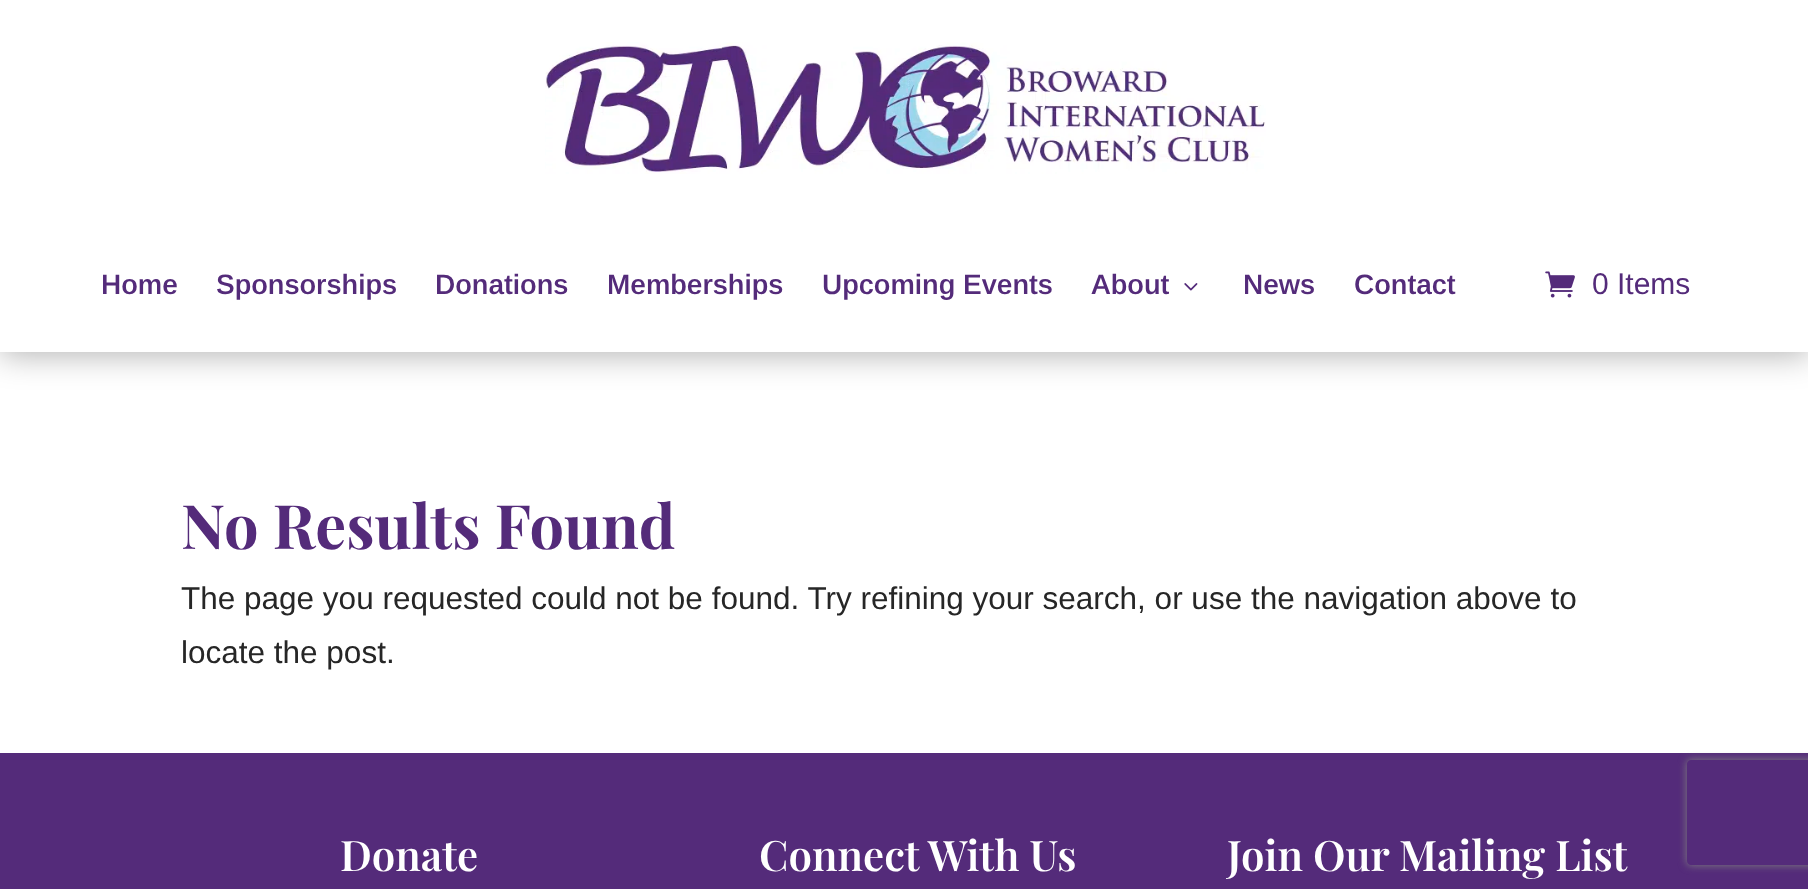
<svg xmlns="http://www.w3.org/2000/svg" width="1808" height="889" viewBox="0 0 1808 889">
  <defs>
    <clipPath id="clip1"><path d="M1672 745H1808V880H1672ZM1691 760H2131C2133 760 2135 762 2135 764V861C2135 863 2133 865 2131 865H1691C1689 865 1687 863 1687 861V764C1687 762 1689 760 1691 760Z" clip-rule="evenodd"/></clipPath>
  </defs>
  <rect width="100%" height="100%" fill="#fff"/>
  <path d="M0 4h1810v351H0z" fill="#0000004d" filter="blur(16px)"/>
  <path d="M0 0h1808v352H0z" fill="#fff"/>
  <image x="545" y="42" width="721" height="132" href="img/1.png"/>
  <image x="1184" y="283" width="14" height="8" href="img/2.png"/>
  <image x="1545" y="271" width="30" height="27" href="img/3.png"/>
  <path d="M0 753h1808v136H0z" fill="#542b7a"/>
  <g clip-path="url(#clip1)">
    <rect x="1687" y="760" width="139" height="105" rx="4" fill="#808080" filter="blur(4.5px)"/>
  </g>
  <g font-family="Arimo" font-size="28" font-weight="600" fill="#542b7a">
    <text x="101" y="294">Home</text>
    <text x="216" y="294">Sponsorships</text>
    <text x="435" y="294">Donations</text>
    <text x="607" y="294">Memberships</text>
    <text x="822" y="294">Upcoming Events</text>
    <text x="1091" y="294">About</text>
    <text x="1243" y="294">News</text>
    <text x="1354" y="294">Contact</text>
  </g>
  <text x="1592" y="294" font-family="Arimo" font-size="30" fill="#542b7a">0 Items</text>
  <text x="181" y="549" font-family="Playfair Display" font-size="61.25" font-weight="bold" fill="#542b7a">No Results Found</text>
  <g font-family="Arimo" font-size="31.5" fill="#262626">
    <text x="181" y="609">The page you requested could not be found. Try refining your search, or use the navigation above to</text>
    <text x="181" y="663">locate the post.</text>
  </g>
  <g font-family="Playfair Display" font-size="42" font-weight="600" fill="#fff">
    <text x="340" y="871">Donate</text>
    <text x="759" y="871">Connect With Us</text>
    <text x="1227" y="871">Join Our Mailing List</text>
  </g>
</svg>
